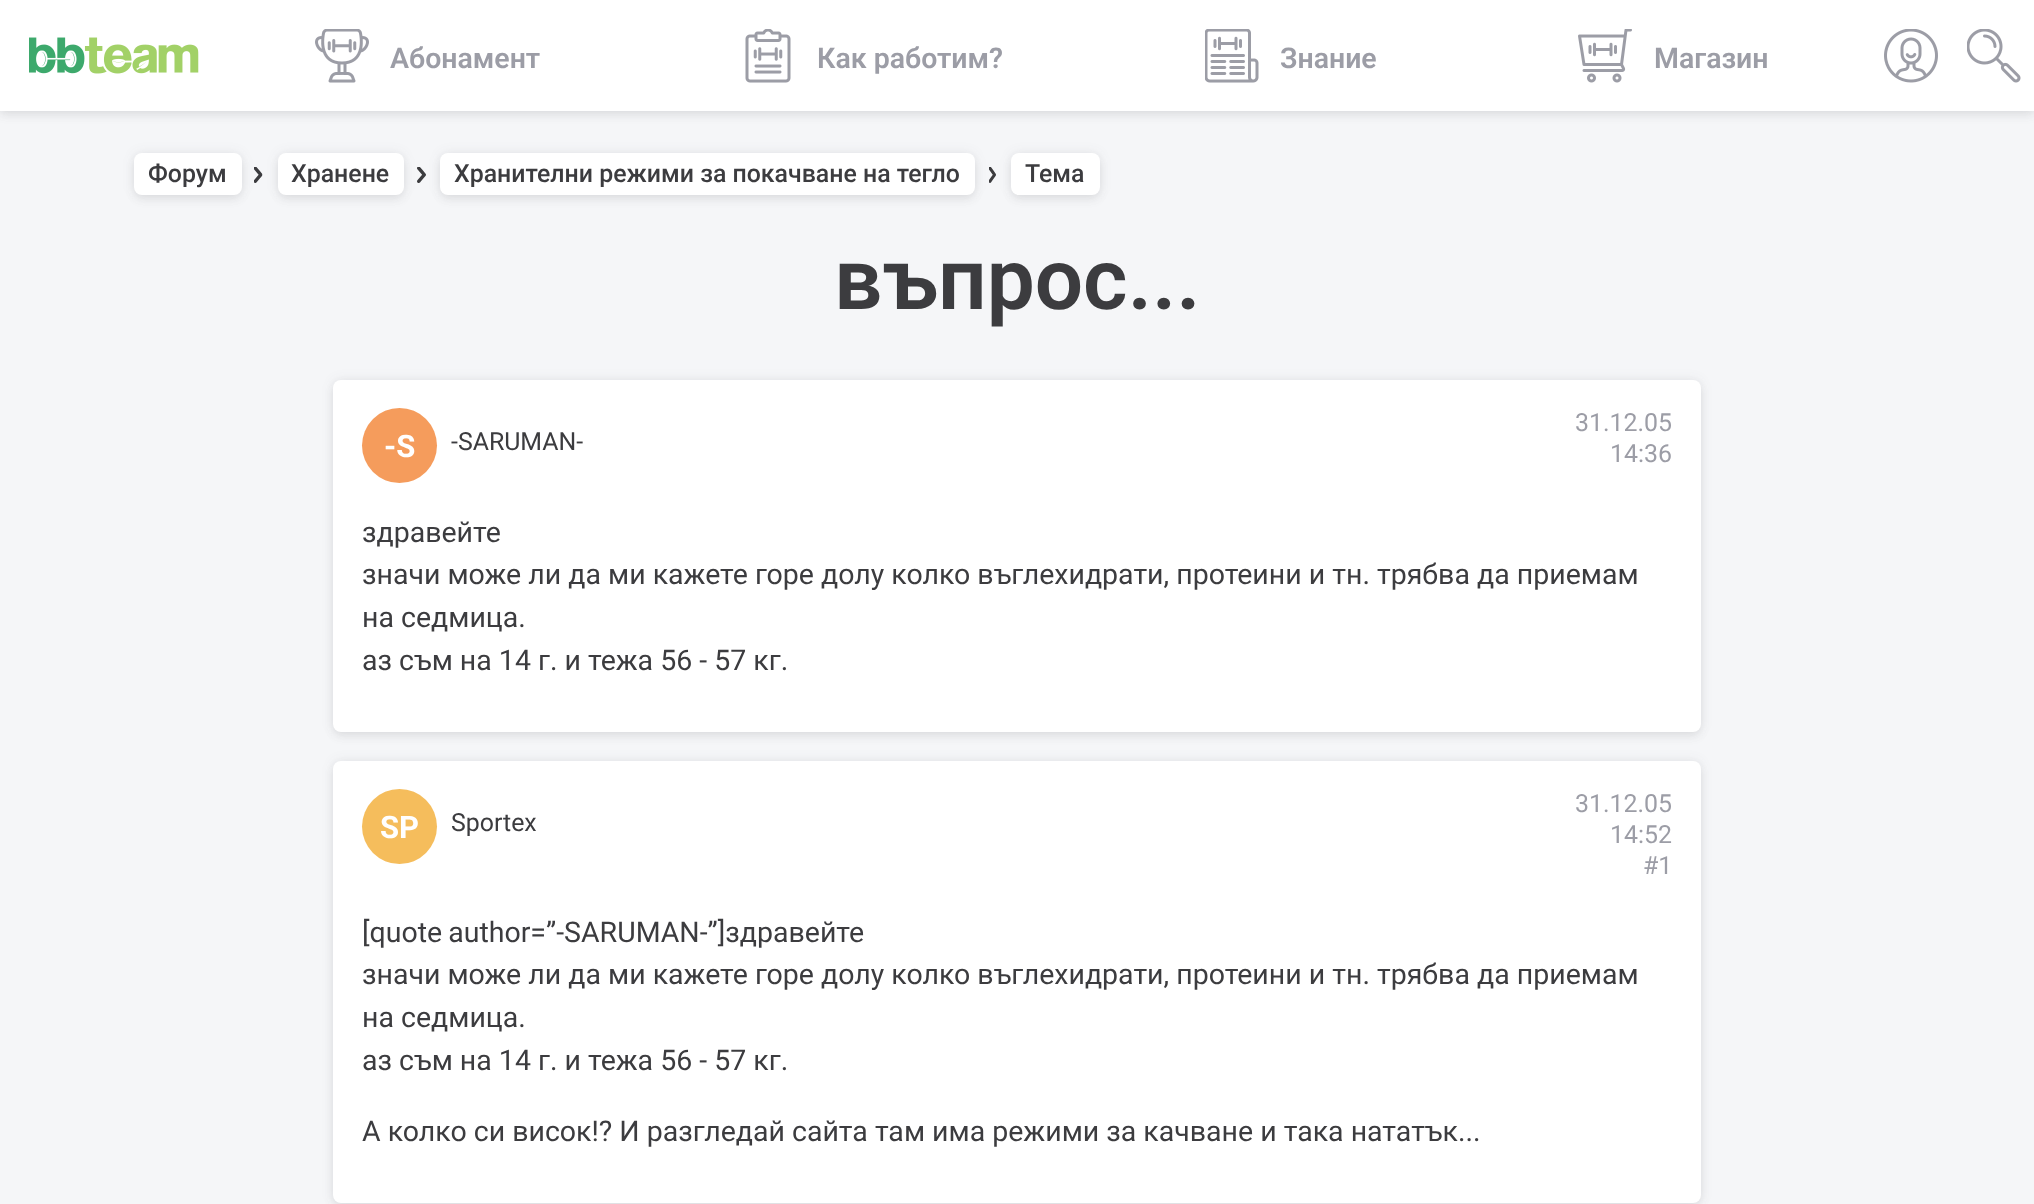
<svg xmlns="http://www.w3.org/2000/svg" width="2034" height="1204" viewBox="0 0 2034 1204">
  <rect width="100%" height="100%" fill="#f5f6f8"/>
  <path d="M0 5h2034v111H0z" fill="#3c3c3f12" filter="blur(4.5px)"/>
  <path d="M0 0h2034v111H0z" fill="#3c3c3f17" filter="blur(6px)"/>
  <path d="M0 0h2034v111H0z" fill="#fff"/>
  <image x="29" y="37" width="170" height="37" href="img/1.png"/>
  <image x="315" y="29" width="54" height="54" href="img/2.png"/>
  <image x="745" y="29" width="46" height="54" href="img/3.png"/>
  <image x="1205" y="29" width="54" height="54" href="img/4.png"/>
  <image x="1578" y="29" width="54" height="54" href="img/5.png"/>
  <image x="1884" y="29" width="54" height="54" href="img/6.png"/>
  <image x="1967" y="29" width="54" height="54" href="img/7.png"/>
  <rect x="134" y="158" width="108" height="42" rx="8" fill="#3c3c3f12" filter="blur(4.5px)"/>
  <rect x="134" y="153" width="108" height="42" rx="8" fill="#3c3c3f17" filter="blur(6px)"/>
  <rect x="134" y="153" width="108" height="42" rx="8" fill="#fff"/>
  <image x="254" y="167" width="9" height="16" href="img/8.png"/>
  <rect x="278" y="158" width="126" height="42" rx="8" fill="#3c3c3f12" filter="blur(4.5px)"/>
  <rect x="278" y="153" width="126" height="42" rx="8" fill="#3c3c3f17" filter="blur(6px)"/>
  <rect x="278" y="153" width="126" height="42" rx="8" fill="#fff"/>
  <image x="417" y="167" width="9" height="16" href="img/9.png"/>
  <rect x="440" y="158" width="535" height="42" rx="8" fill="#3c3c3f12" filter="blur(4.5px)"/>
  <rect x="440" y="153" width="535" height="42" rx="8" fill="#3c3c3f17" filter="blur(6px)"/>
  <rect x="440" y="153" width="535" height="42" rx="8" fill="#fff"/>
  <image x="989" y="167" width="7" height="16" href="img/10.png"/>
  <rect x="1011" y="158" width="89" height="42" rx="8" fill="#3c3c3f12" filter="blur(4.5px)"/>
  <rect x="1011" y="153" width="89" height="42" rx="8" fill="#3c3c3f17" filter="blur(6px)"/>
  <rect x="1011" y="153" width="89" height="42" rx="8" fill="#fff"/>
  <rect x="333" y="384" width="1368" height="353" rx="8" fill="#3c3c3f12" filter="blur(4.5px)"/>
  <rect x="333" y="380" width="1368" height="352" rx="8" fill="#3c3c3f17" filter="blur(6px)"/>
  <rect x="333" y="380" width="1368" height="352" rx="8" fill="#fff"/>
  <circle cx="399.5" cy="445.5" r="37.5" fill="#f59c5c"/>
  <rect x="333" y="765" width="1368" height="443" rx="8" fill="#3c3c3f12" filter="blur(4.5px)"/>
  <rect x="333" y="761" width="1368" height="442" rx="8" fill="#3c3c3f17" filter="blur(6px)"/>
  <rect x="333" y="761" width="1368" height="442" rx="8" fill="#fff"/>
  <circle cx="399.5" cy="826.5" r="37.5" fill="#f5bd5c"/>
  <g font-family="Roboto" font-size="28.5" font-weight="600" fill="#9c9da6">
    <text x="390" y="68">Абонамент</text>
    <text x="817" y="68">Как работим?</text>
    <text x="1280" y="68">Знание</text>
    <text x="1654" y="68">Магазин</text>
  </g>
  <g font-family="Roboto" font-size="24.9" font-weight="500" fill="#3c3c3f">
    <text x="148" y="182">Форум</text>
    <text x="291" y="182">Хранене</text>
    <text x="454" y="182">Хранителни режими за покачване на тегло</text>
    <text x="1025" y="182">Тема</text>
  </g>
  <text x="834" y="309" font-family="Roboto" font-size="85.5" font-weight="600" fill="#3c3c3f">въпрос...</text>
  <text x="384" y="457" font-family="Roboto" font-size="31" font-weight="bold" fill="#fff">-S</text>
  <text x="451" y="450" font-family="Roboto" font-size="24.9" fill="#3c3c3f">-SARUMAN-</text>
  <g font-family="Roboto" font-size="24.9" fill="#9c9da6">
    <text x="1575" y="431">31.12.05</text>
    <text x="1610" y="462">14:36</text>
  </g>
  <g font-family="Roboto" font-size="28.5" fill="#3c3c3f">
    <text x="362" y="542">здравейте</text>
    <text x="362" y="584">значи може ли да ми кажете горе долу колко въглехидрати, протеини и тн. трябва да приемам</text>
    <text x="362" y="627">на седмица.</text>
    <text x="362" y="670">аз съм на 14 г. и тежа 56 - 57 кг.</text>
  </g>
  <text x="380" y="838" font-family="Roboto" font-size="31" font-weight="bold" fill="#fff">SP</text>
  <text x="451" y="831" font-family="Roboto" font-size="24.9" fill="#3c3c3f">Sportex</text>
  <g font-family="Roboto" font-size="24.9" fill="#9c9da6">
    <text x="1575" y="812">31.12.05</text>
    <text x="1610" y="843">14:52</text>
    <text x="1643" y="874">#1</text>
  </g>
  <g font-family="Roboto" font-size="28.5" fill="#3c3c3f">
    <text x="362" y="942" word-spacing="-1">[quote author=”-SARUMAN-”]здравейте</text>
    <text x="362" y="984">значи може ли да ми кажете горе долу колко въглехидрати, протеини и тн. трябва да приемам</text>
    <text x="362" y="1027">на седмица.</text>
    <text x="362" y="1070">аз съм на 14 г. и тежа 56 - 57 кг.</text>
    <text x="362" y="1141">А колко си висок!? И разгледай сайта там има режими за качване и така нататък...</text>
  </g>
</svg>
